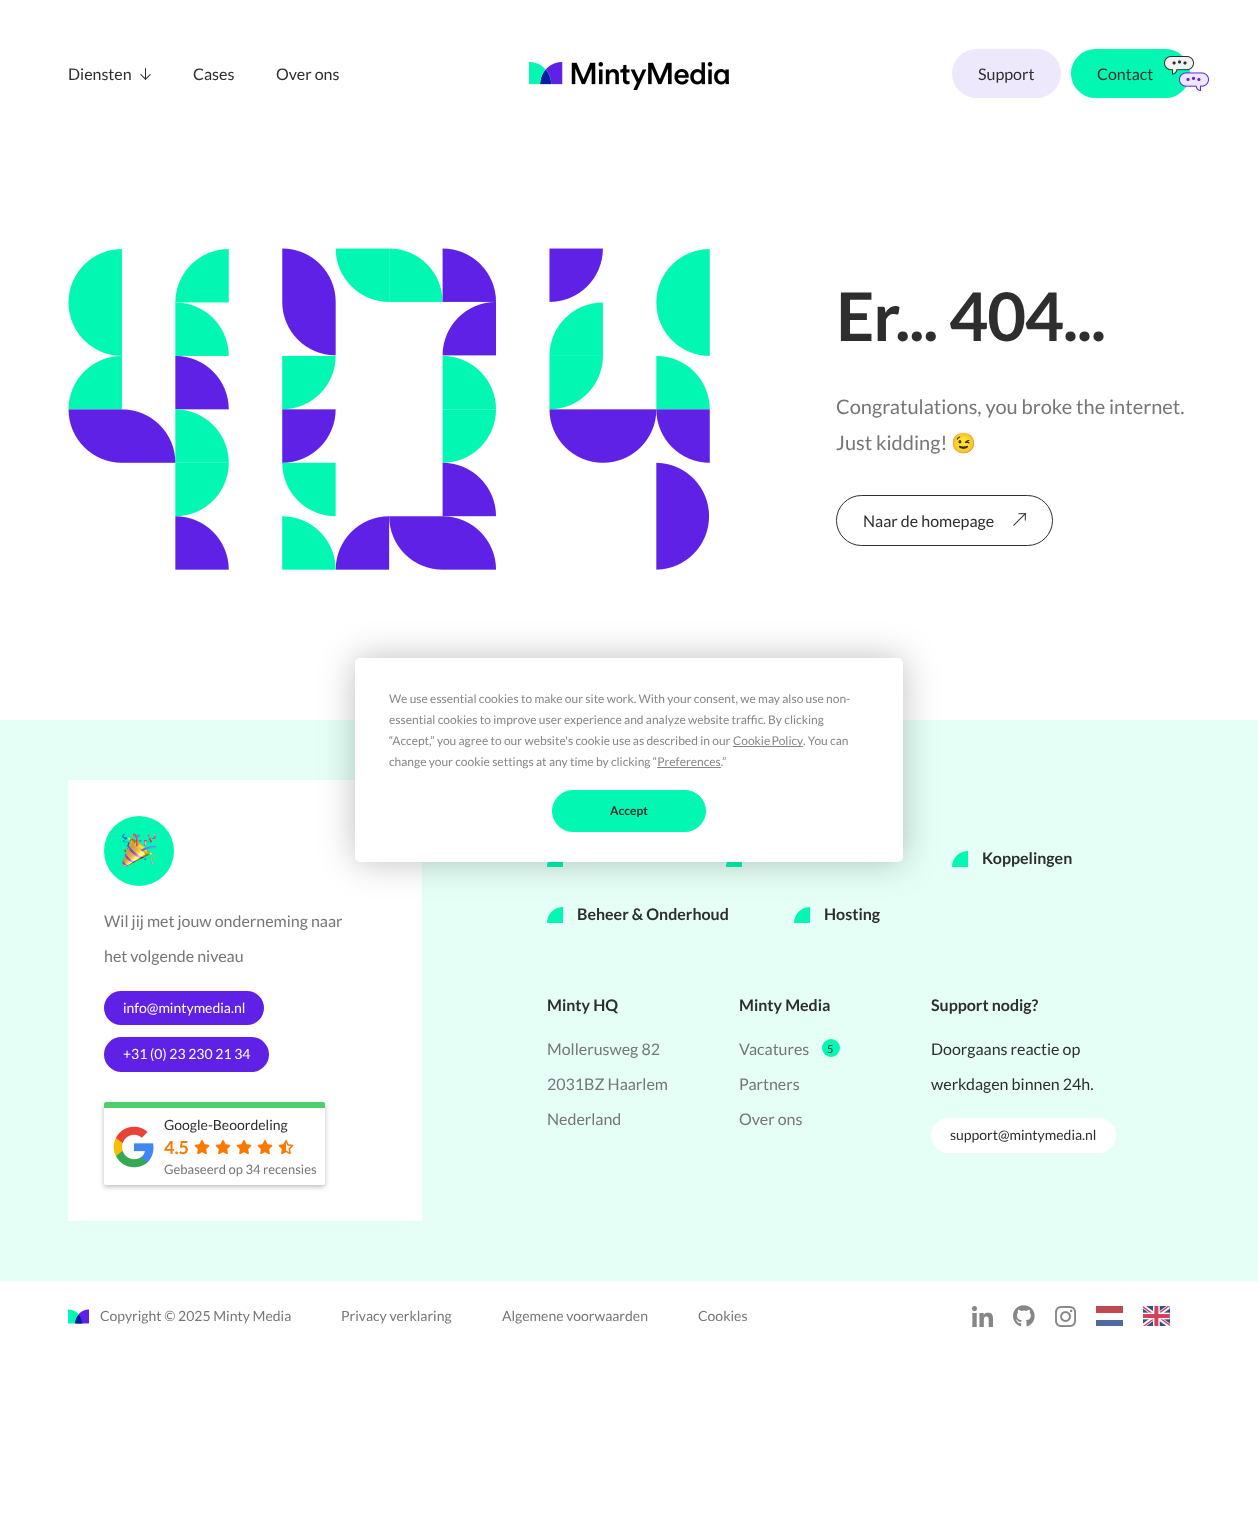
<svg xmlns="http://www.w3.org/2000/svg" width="1258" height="1520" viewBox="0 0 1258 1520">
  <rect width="100%" height="100%" fill="#fff"/>
  <image x="140" y="68" width="11" height="12" href="img/1.png"/>
  <image x="529" y="62" width="200" height="28" href="img/2.png"/>
  <rect x="952" y="49" width="109" height="49" rx="24.5" fill="#eee8fd"/>
  <rect x="1071" y="49" width="119" height="49" rx="24.5" fill="#02f8b2"/>
  <image x="1164" y="56" width="45" height="35" href="img/3.png"/>
  <image x="68" y="248" width="642" height="322" href="img/4.png"/>
  <rect x="836.5" y="495.5" width="216" height="50" rx="25" fill="none" stroke="#2e2e2e"/>
  <image x="1013" y="513" width="13" height="13" href="img/5.png"/>
  <path d="M0 720h1258v561H0z" fill="#e5fff7"/>
  <path d="M68 780h354v441H68z" fill="#fff"/>
  <image x="547" y="862" width="16" height="5" href="img/10.png"/>
  <image x="726" y="862" width="16" height="5" href="img/10.png"/>
  <image x="952" y="851" width="16" height="16" href="img/11.png"/>
  <image x="547" y="907" width="16" height="16" href="img/11.png"/>
  <image x="794" y="907" width="16" height="16" href="img/11.png"/>
  <rect x="355" y="658" width="548" height="204" rx="5" fill="#00000040" filter="blur(17.5px)"/>
  <rect x="355" y="658" width="548" height="204" rx="5" fill="#fff"/>
  <path d="M733 746h70v1H733z" fill="#868686"/>
  <path d="M657 767h64v1H657z" fill="#868686"/>
  <rect x="552.5" y="790.5" width="153" height="41" rx="20.5" fill="#02f8b2" stroke="#02f8b2"/>
  <circle cx="139" cy="851" r="35" fill="#02f8b2"/>
  <image x="122" y="833" width="34" height="34" href="img/6.png"/>
  <rect x="104" y="991" width="160" height="34" rx="17" fill="#5e21e5"/>
  <rect x="104" y="1037" width="165" height="35" rx="17.5" fill="#5e21e5"/>
  <rect x="104" y="1104" width="221" height="83" rx="2" fill="#00000042" filter="blur(2.5px)"/>
  <path d="M106 1102H323C324 1102 325 1103 325 1104V1108H104V1104C104 1103 105 1102 106 1102Z" fill="#4fce6a"/>
  <path d="M104 1108H325V1183C325 1184 324 1185 323 1185H106C105 1185 104 1184 104 1183Z" fill="#fff"/>
  <image x="113" y="1126" width="41" height="42" href="img/7.png"/>
  <image x="194" y="1140" width="16" height="14" href="img/8.png"/>
  <image x="215" y="1140" width="16" height="14" href="img/8.png"/>
  <image x="236" y="1140" width="16" height="14" href="img/8.png"/>
  <image x="257" y="1140" width="16" height="14" href="img/8.png"/>
  <image x="278" y="1140" width="16" height="14" href="img/9.png"/>
  <circle cx="831" cy="1048" r="9" fill="#02f8b2"/>
  <rect x="931" y="1118" width="185" height="35" rx="17.5" fill="#fff"/>
  <image x="68" y="1309" width="21" height="15" href="img/12.png"/>
  <image x="972" y="1306" width="21" height="21" href="img/13.png"/>
  <image x="1013" y="1305" width="22" height="22" href="img/14.png"/>
  <image x="1055" y="1306" width="21" height="21" href="img/15.png"/>
  <path d="M1096 1306h27v7H1096z" fill="#be4953"/>
  <path d="M1096 1320h27v6H1096z" fill="#4d6ba2"/>
  <image x="1143" y="1306" width="27" height="20" href="img/16.png"/>
  <g font-family="Lato" font-size="16" fill="#2e2e2e">
    <text x="68" y="80">Diensten</text>
    <text x="193" y="80">Cases</text>
    <text x="276" y="80">Over ons</text>
    <text x="978" y="80">Support</text>
    <text x="1097" y="80">Contact</text>
  </g>
  <text x="836" y="341" font-family="Lato" font-size="67" font-weight="bold" letter-spacing="-1" fill="#2e2e2e">Er... 404...</text>
  <g font-family="Lato" font-size="20" fill="#767676">
    <text x="836" y="414">Congratulations, you broke the internet.</text>
    <text x="836" y="450">Just kidding!</text>
  </g>
  <text x="951" y="450" font-family="Noto Color Emoji" font-size="20" fill="#767676">😉</text>
  <text x="863" y="527" font-family="Lato" font-size="16" fill="#2e2e2e">Naar de homepage</text>
  <g font-family="Lato" font-size="12" fill="#868686">
    <text x="389" y="703">We use essential cookies to make our site work. With your consent, we may also use non-</text>
    <text x="389" y="724">essential cookies to improve user experience and analyze website traffic. By clicking</text>
    <text x="389" y="745">“Accept,” you agree to our website's cookie use as described in our</text>
    <text x="733" y="745" word-spacing="-1">Cookie Policy</text>
    <text x="803" y="745">. You can</text>
    <text x="389" y="766">change your cookie settings at any time by clicking “Preferences.”</text>
  </g>
  <text x="610" y="815" font-family="Lato" font-size="12" font-weight="bold" fill="#2e2e2e">Accept</text>
  <g font-family="Lato" font-size="16" fill="#767676">
    <text x="104" y="927">Wil jij met jouw onderneming naar</text>
    <text x="104" y="962">het volgende niveau</text>
  </g>
  <g font-family="Lato" font-size="14" fill="#fff">
    <text x="123" y="1013">info@mintymedia.nl</text>
    <text x="123" y="1059">+31 (0) 23 230 21 34</text>
  </g>
  <text x="164" y="1130" font-family="Lato" font-size="14" fill="#2e2e2e">Google-Beoordeling</text>
  <text x="164" y="1154" font-family="Lato" font-size="18" font-weight="bold" fill="#fb7900">4.5</text>
  <text x="164" y="1174" font-family="Lato" font-size="13" fill="#767676">Gebaseerd op 34 recensies</text>
  <g font-family="Lato" font-size="16" font-weight="bold" fill="#2e2e2e">
    <text x="982" y="864">Koppelingen</text>
    <text x="577" y="920">Beheer &amp; Onderhoud</text>
    <text x="824" y="920">Hosting</text>
    <text x="547" y="1011">Minty HQ</text>
  </g>
  <g font-family="Lato" font-size="16" fill="#767676">
    <text x="547" y="1055">Mollerusweg 82</text>
    <text x="547" y="1090">2031BZ Haarlem</text>
    <text x="547" y="1125">Nederland</text>
  </g>
  <text x="739" y="1011" font-family="Lato" font-size="16" font-weight="bold" fill="#2e2e2e">Minty Media</text>
  <text x="739" y="1055" font-family="Lato" font-size="16" fill="#767676">Vacatures</text>
  <text x="827" y="1053" font-family="Lato" font-size="11" fill="#2e2e2e">5</text>
  <g font-family="Lato" font-size="16" fill="#767676">
    <text x="739" y="1090">Partners</text>
    <text x="739" y="1125">Over ons</text>
  </g>
  <text x="931" y="1011" font-family="Lato" font-size="16" font-weight="bold" fill="#2e2e2e">Support nodig?</text>
  <g font-family="Lato" font-size="16" fill="#2e2e2e">
    <text x="931" y="1055">Doorgaans reactie op</text>
    <text x="931" y="1090">werkdagen binnen 24h.</text>
  </g>
  <text x="950" y="1140" font-family="Lato" font-size="14" fill="#2e2e2e">support@mintymedia.nl</text>
  <g font-family="Lato" font-size="14" fill="#767676">
    <text x="100" y="1321">Copyright © 2025 Minty Media</text>
    <text x="341" y="1321">Privacy verklaring</text>
    <text x="502" y="1321">Algemene voorwaarden</text>
    <text x="698" y="1321">Cookies</text>
  </g>
</svg>
